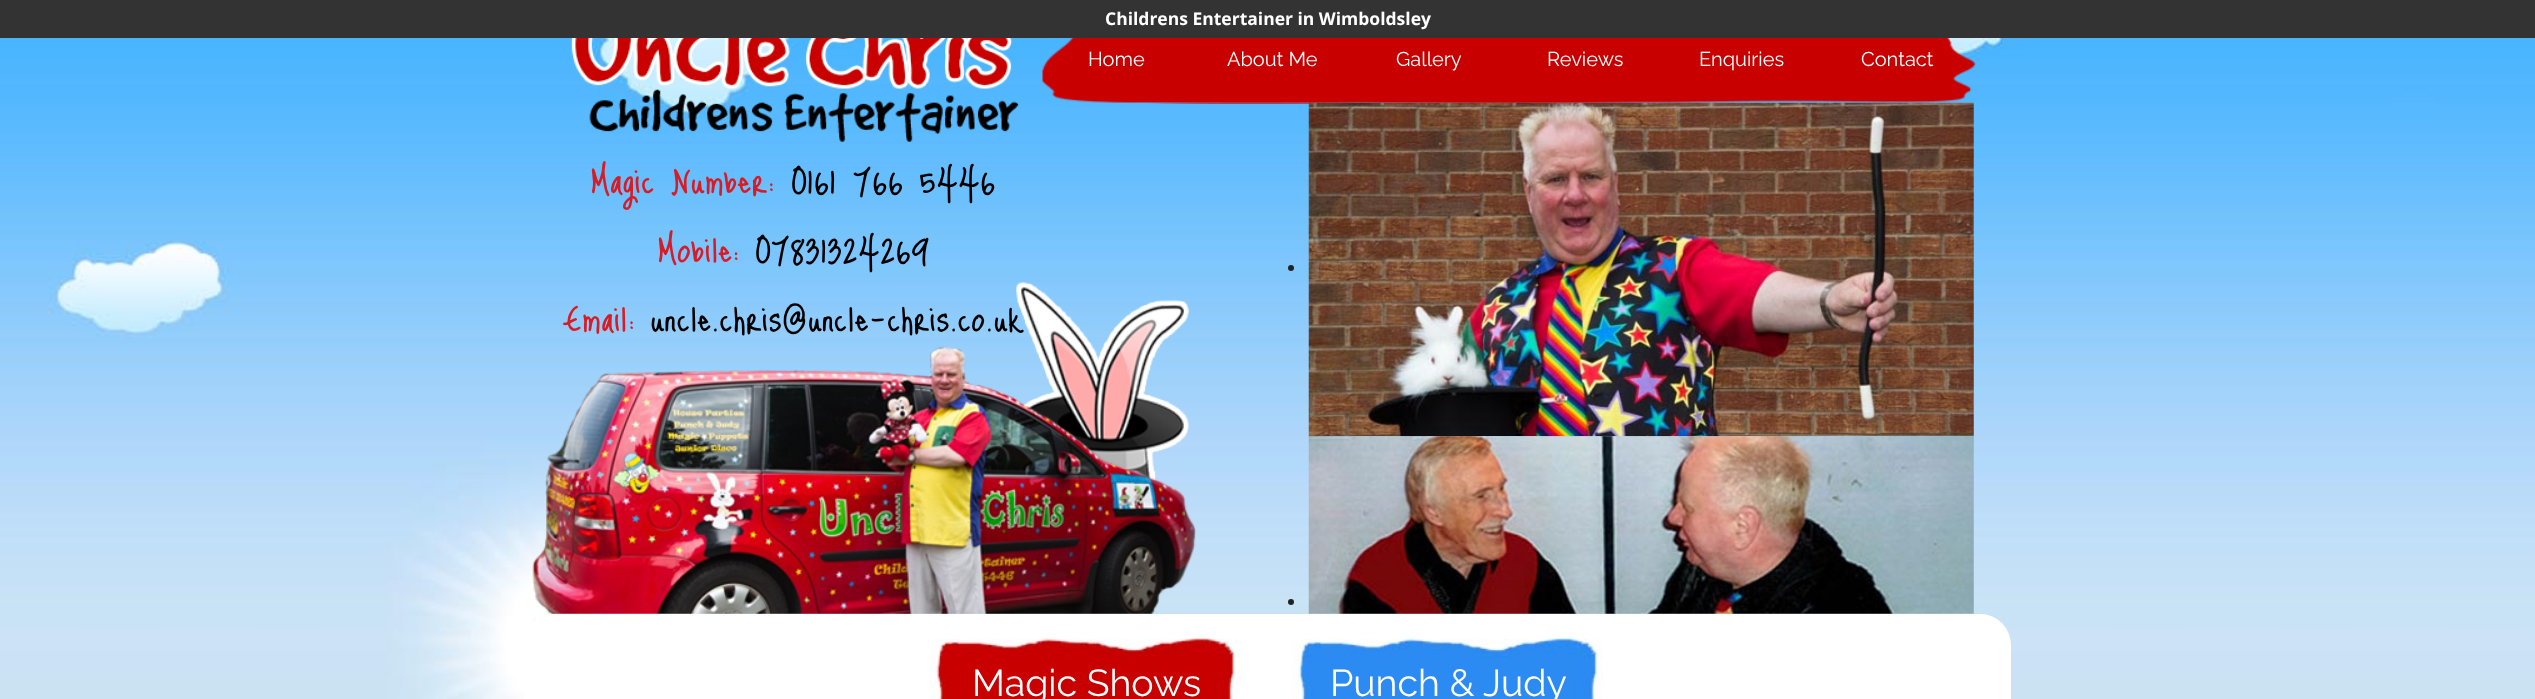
<svg xmlns="http://www.w3.org/2000/svg" width="2535" height="699" viewBox="0 0 2535 699">
  <rect width="100%" height="100%" fill="#fff"/>
  <image x="0" y="38" width="2535" height="661" href="img/1.png"/>
  <path d="M0 0h2535v38H0z" fill="#333"/>
  <image x="532" y="102" width="1119" height="512" href="img/4.png"/>
  <image x="1308" y="102" width="666" height="335" href="img/5.png"/>
  <image x="1042" y="38" width="934" height="65" href="img/2.png"/>
  <image x="571" y="38" width="448" height="104" href="img/3.png"/>
  <circle cx="1291" cy="268" r="3" fill="#222"/>
  <circle cx="1291" cy="602" r="3" fill="#222"/>
  <image x="1308" y="436" width="666" height="178" href="img/6.png"/>
  <rect x="524" y="614" width="1487" height="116" rx="31" fill="#fff"/>
  <image x="930" y="638" width="313" height="61" href="img/7.png"/>
  <image x="1292" y="638" width="311" height="61" href="img/8.png"/>
  <text x="1105" y="25" font-family="Open Sans" font-size="17.5" font-weight="bold" fill="#fff">Childrens Entertainer in Wimboldsley</text>
  <g font-family="Raleway" font-size="20" fill="#fff">
    <text x="1088" y="66">Home</text>
    <text x="1227" y="66">About Me</text>
    <text x="1396" y="66">Gallery</text>
    <text x="1547" y="66">Reviews</text>
    <text x="1699" y="66">Enquiries</text>
    <text x="1861" y="66">Contact</text>
  </g>
  <text x="591" y="193" font-family="Just Me Again Down Here" font-size="43.75" fill="#d81c25">Magic Number:</text>
  <text x="791" y="193" font-family="Just Me Again Down Here" font-size="43.75" fill="#000">0161 766 5446</text>
  <text x="658" y="262" font-family="Just Me Again Down Here" font-size="43.75" fill="#d81c25">Mobile:</text>
  <text x="755" y="262" font-family="Just Me Again Down Here" font-size="43.75" fill="#000">07831324269</text>
  <text x="563" y="331" font-family="Just Me Again Down Here" font-size="43.75" fill="#d81c25">Email:</text>
  <text x="650" y="331" font-family="Just Me Again Down Here" font-size="43.75" fill="#000">uncle.chris@uncle-chris.co.uk</text>
  <g font-family="Raleway" font-size="37.5" fill="#fff">
    <text x="972" y="696">Magic Shows</text>
    <text x="1330" y="696">Punch &amp; Judy</text>
  </g>
</svg>
